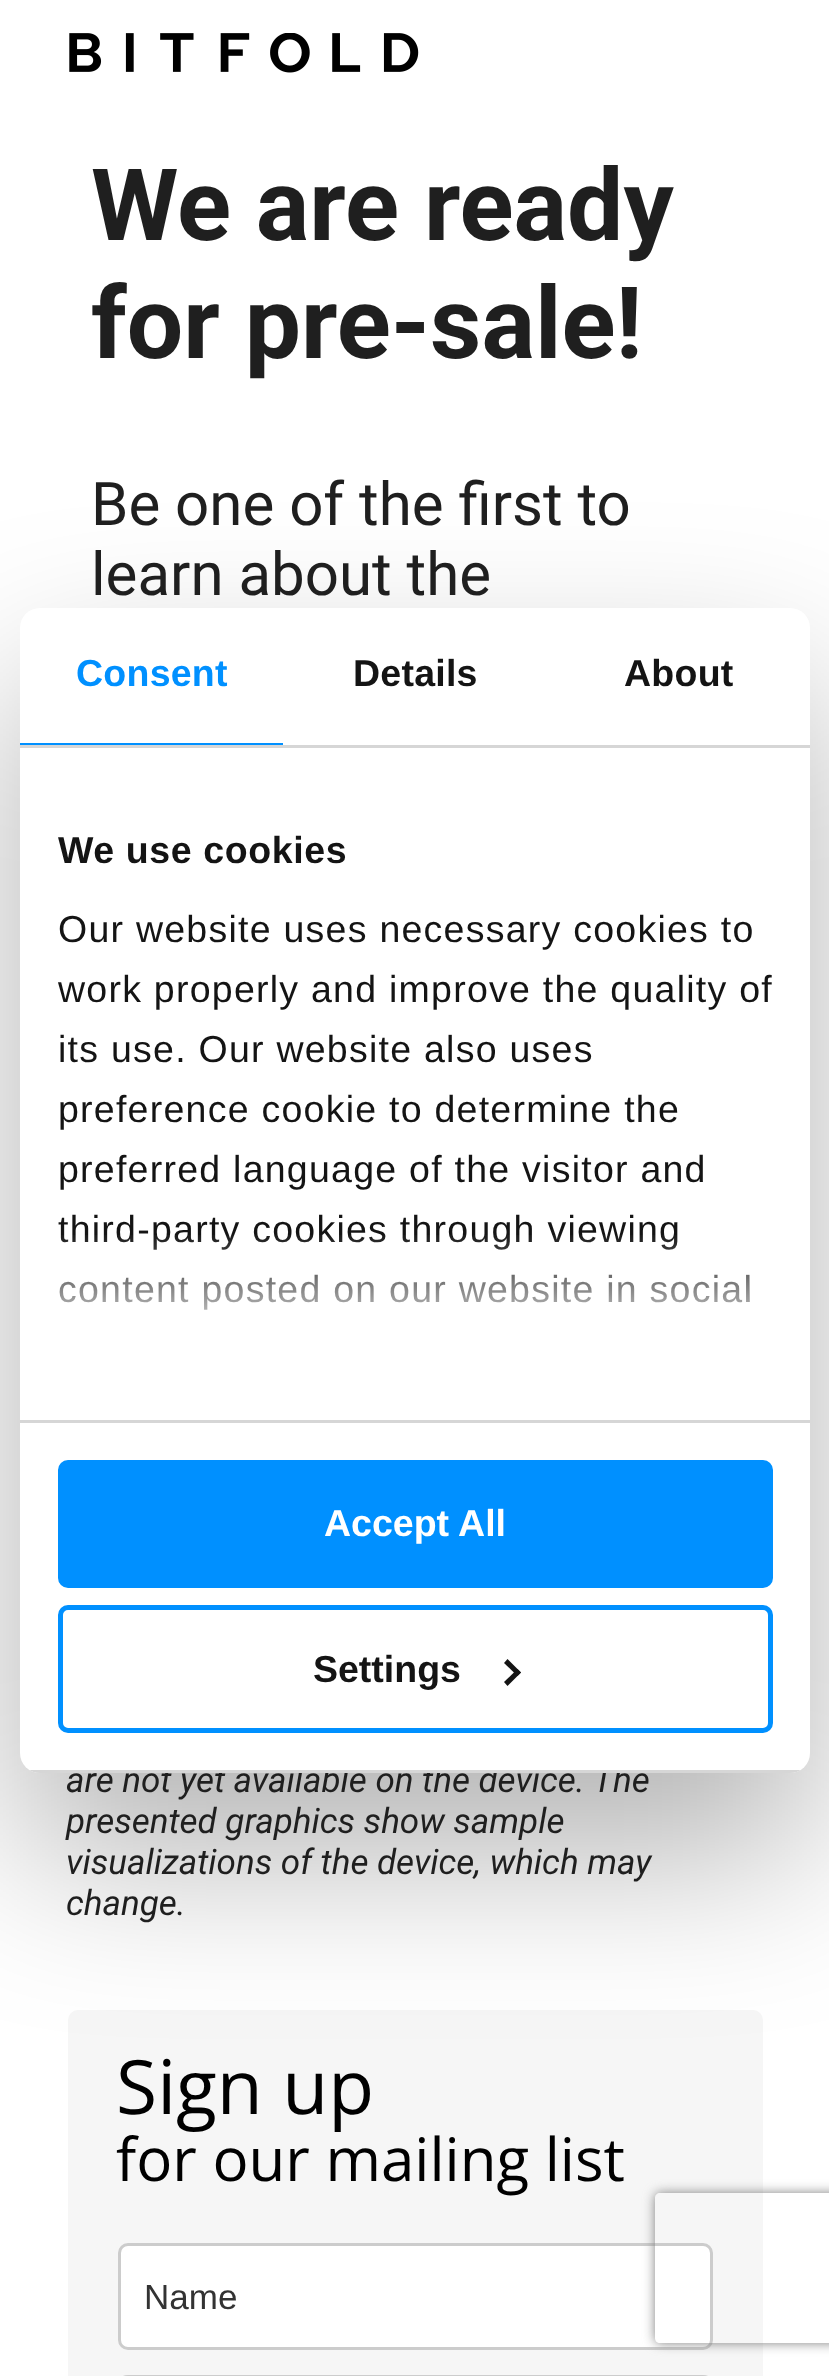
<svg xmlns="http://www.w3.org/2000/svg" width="829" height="2376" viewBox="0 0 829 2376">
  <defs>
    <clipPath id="clip1"><path d="M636 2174H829V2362H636ZM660 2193H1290C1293 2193 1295 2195 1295 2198V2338C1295 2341 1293 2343 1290 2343H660C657 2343 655 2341 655 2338V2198C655 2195 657 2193 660 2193Z" clip-rule="evenodd"/></clipPath>
    <linearGradient id="g1" gradientUnits="userSpaceOnUse" x1="399" y1="1419" x2="399" y2="1232"><stop offset="0" stop-color="#fff"/><stop offset="0.5" stop-color="#fff" stop-opacity="0.8"/><stop offset="1" stop-color="#fff" stop-opacity="0"/></linearGradient>
    <clipPath id="clip2"><rect x="20" y="608" width="790" height="1165" rx="20"/></clipPath>
  </defs>
  <rect width="100%" height="100%" fill="#fff"/>
  <image x="69" y="33" width="350" height="40" href="img/1.png"/>
  <rect x="68" y="2010" width="695" height="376" rx="10" fill="#f6f6f6"/>
  <rect x="119.5" y="2244.5" width="592" height="104" rx="8.5" fill="#fff" stroke="#ccc" stroke-width="3"/>
  <rect x="119.5" y="2376.5" width="592" height="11" rx="8.5" fill="none" stroke="#ccc" stroke-width="3"/>
  <rect x="20" y="688" width="790" height="1165" rx="20" fill="#0000004d" filter="blur(85px)"/>
  <g clip-path="url(#clip1)">
    <rect x="655" y="2193" width="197" height="150" rx="5" fill="#808080" filter="blur(6px)"/>
  </g>
  <g font-family="Roboto" font-size="100" font-weight="bold" fill="#1f1f1f">
    <text x="91" y="240">We are ready</text>
    <text x="91" y="358">for pre-sale!</text>
  </g>
  <g font-family="Roboto" font-size="60" fill="#1f1f1f">
    <text x="91" y="525">Be one of the first to</text>
    <text x="91" y="595">learn about the</text>
  </g>
  <g font-family="Roboto" font-size="35" font-style="italic" fill="#1f1f1f">
    <text x="66" y="1792">are not yet available on the device. The</text>
    <text x="66" y="1833">presented graphics show sample</text>
    <text x="66" y="1874">visualizations of the device, which may</text>
    <text x="66" y="1915">change.</text>
  </g>
  <text x="116" y="2114" font-family="Open Sans" font-size="75" fill="#000">Sign up</text>
  <text x="116" y="2181" font-family="Open Sans" font-size="60" fill="#000">for our mailing list</text>
  <text x="144" y="2309" font-family="Liberation Sans" font-size="35" fill="#333">Name</text>
  <rect x="20" y="608" width="790" height="1165" rx="20" fill="#fff"/>
  <path d="M20 745h790v3H20z" fill="#d6d6d6"/>
  <path d="M20 743h263v2H20z" fill="#0090ff"/>
  <text x="76" y="686" font-family="Liberation Sans" font-size="37.5" font-weight="bold" letter-spacing="0.25" fill="#0090ff">Consent</text>
  <g font-family="Liberation Sans" font-size="37.5" font-weight="bold" letter-spacing="0.25" fill="#141414">
    <text x="353" y="686">Details</text>
    <text x="624" y="686">About</text>
  </g>
  <path d="M20 1420h790v3H20z" fill="#d6d6d6"/>
  <text x="58" y="863" font-family="Liberation Sans" font-size="37.5" font-weight="bold" letter-spacing="0.6" fill="#141414">We use cookies</text>
  <g font-family="Liberation Sans" font-size="37.5" letter-spacing="1.25" fill="#141414">
    <text x="58" y="942">Our website uses necessary cookies to</text>
    <text x="58" y="1002">work properly and improve the quality of</text>
    <text x="58" y="1062">its use. Our website also uses</text>
    <text x="58" y="1122">preference cookie to determine the</text>
    <text x="58" y="1182">preferred language of the visitor and</text>
    <text x="58" y="1242">third-party cookies through viewing</text>
    <text x="58" y="1302">content posted on our website in social</text>
  </g>
  <path d="M59 1235h690v75H59z" fill="url(#g1)"/>
  <g clip-path="url(#clip2)">
    <path d="M29 1770h772v3H29z" fill="#d6d6d6"/>
  </g>
  <rect x="60.5" y="1462.5" width="710" height="123" rx="7.5" fill="#0090ff" stroke="#0090ff" stroke-width="5"/>
  <text x="324" y="1536" font-family="Liberation Sans" font-size="37.5" font-weight="bold" fill="#fff">Accept All</text>
  <rect x="60.5" y="1607.5" width="710" height="123" rx="7.5" fill="none" stroke="#0090ff" stroke-width="5"/>
  <text x="313" y="1682" font-family="Liberation Sans" font-size="37.5" font-weight="bold" fill="#141414">Settings</text>
  <path d="M507.5 1659L521 1672.5L517.5 1676L504 1663Z" fill="#141414"/>
  <path d="M517.5 1669L521 1672.5L507.5 1686L504 1682Z" fill="#141414"/>
</svg>
